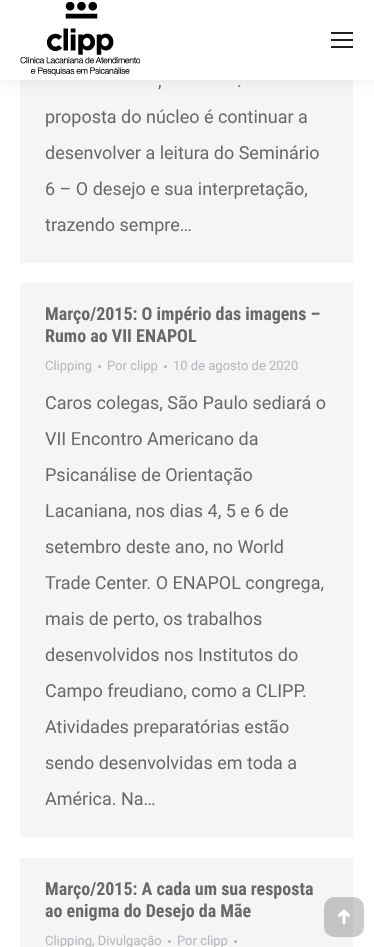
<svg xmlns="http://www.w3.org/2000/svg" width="374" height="947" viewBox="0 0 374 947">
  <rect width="100%" height="100%" fill="#fff"/>
  <path d="M20 80h333v183H20z" fill="#f5f5f5"/>
  <path d="M-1 -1h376v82H-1z" fill="#00000012" filter="blur(7.5px)"/>
  <path d="M0 0h374v80H0z" fill="#fff"/>
  <image x="20" y="2" width="120" height="74" href="img/1.png"/>
  <path d="M331 32h22v2H331z" fill="#222"/>
  <path d="M331 39h22v2H331z" fill="#222"/>
  <path d="M331 46h22v2H331z" fill="#222"/>
  <path d="M20 283h333v554H20z" fill="#f5f5f5"/>
  <circle cx="99.5" cy="366.5" r="1.5" fill="#b4b5bb"/>
  <circle cx="165.5" cy="366.5" r="1.5" fill="#b4b5bb"/>
  <path d="M20 858h333v89H20z" fill="#f5f5f5"/>
  <circle cx="169.5" cy="941.5" r="1.5" fill="#b4b5bb"/>
  <circle cx="235.5" cy="941.5" r="1.5" fill="#b4b5bb"/>
  <rect x="324" y="897" width="40" height="40" rx="10" fill="#00000033"/>
  <image x="338" y="909" width="12" height="16" href="img/2.png"/>
  <g font-family="Roboto" font-size="18" fill="#686868">
    <text x="158" y="87">,</text>
    <text x="237" y="87">.</text>
    <text x="45" y="123">proposta do núcleo é continuar a</text>
    <text x="45" y="159">desenvolver a leitura do Seminário</text>
    <text x="45" y="195">6 – O desejo e sua interpretação,</text>
    <text x="45" y="231">trazendo sempre…</text>
  </g>
  <g font-family="Roboto Condensed" font-size="18" font-weight="bold" fill="#686868">
    <text x="45" y="320">Março/2015: O império das imagens –</text>
    <text x="45" y="342">Rumo ao VII ENAPOL</text>
  </g>
  <g font-family="Roboto" font-size="13" fill="#b4b5bb">
    <text x="45" y="370">Clipping</text>
    <text x="107" y="370">Por clipp</text>
    <text x="173" y="370">10 de agosto de 2020</text>
  </g>
  <g font-family="Roboto" font-size="18" fill="#686868">
    <text x="45" y="409">Caros colegas, São Paulo sediará o</text>
    <text x="45" y="445">VII Encontro Americano da</text>
    <text x="45" y="481">Psicanálise de Orientação</text>
    <text x="45" y="517">Lacaniana, nos dias 4, 5 e 6 de</text>
    <text x="45" y="553">setembro deste ano, no World</text>
    <text x="45" y="589">Trade Center. O ENAPOL congrega,</text>
    <text x="45" y="625">mais de perto, os trabalhos</text>
    <text x="45" y="661">desenvolvidos nos Institutos do</text>
    <text x="45" y="697">Campo freudiano, como a CLIPP.</text>
    <text x="45" y="733">Atividades preparatórias estão</text>
    <text x="45" y="769">sendo desenvolvidas em toda a</text>
    <text x="45" y="805">América. Na…</text>
  </g>
  <g font-family="Roboto Condensed" font-size="18" font-weight="bold" fill="#686868">
    <text x="45" y="895">Março/2015: A cada um sua resposta</text>
    <text x="45" y="917">ao enigma do Desejo da Mãe</text>
  </g>
  <g font-family="Roboto" font-size="13" fill="#b4b5bb">
    <text x="45" y="945">Clipping, Divulgação</text>
    <text x="177" y="945">Por clipp</text>
  </g>
</svg>
